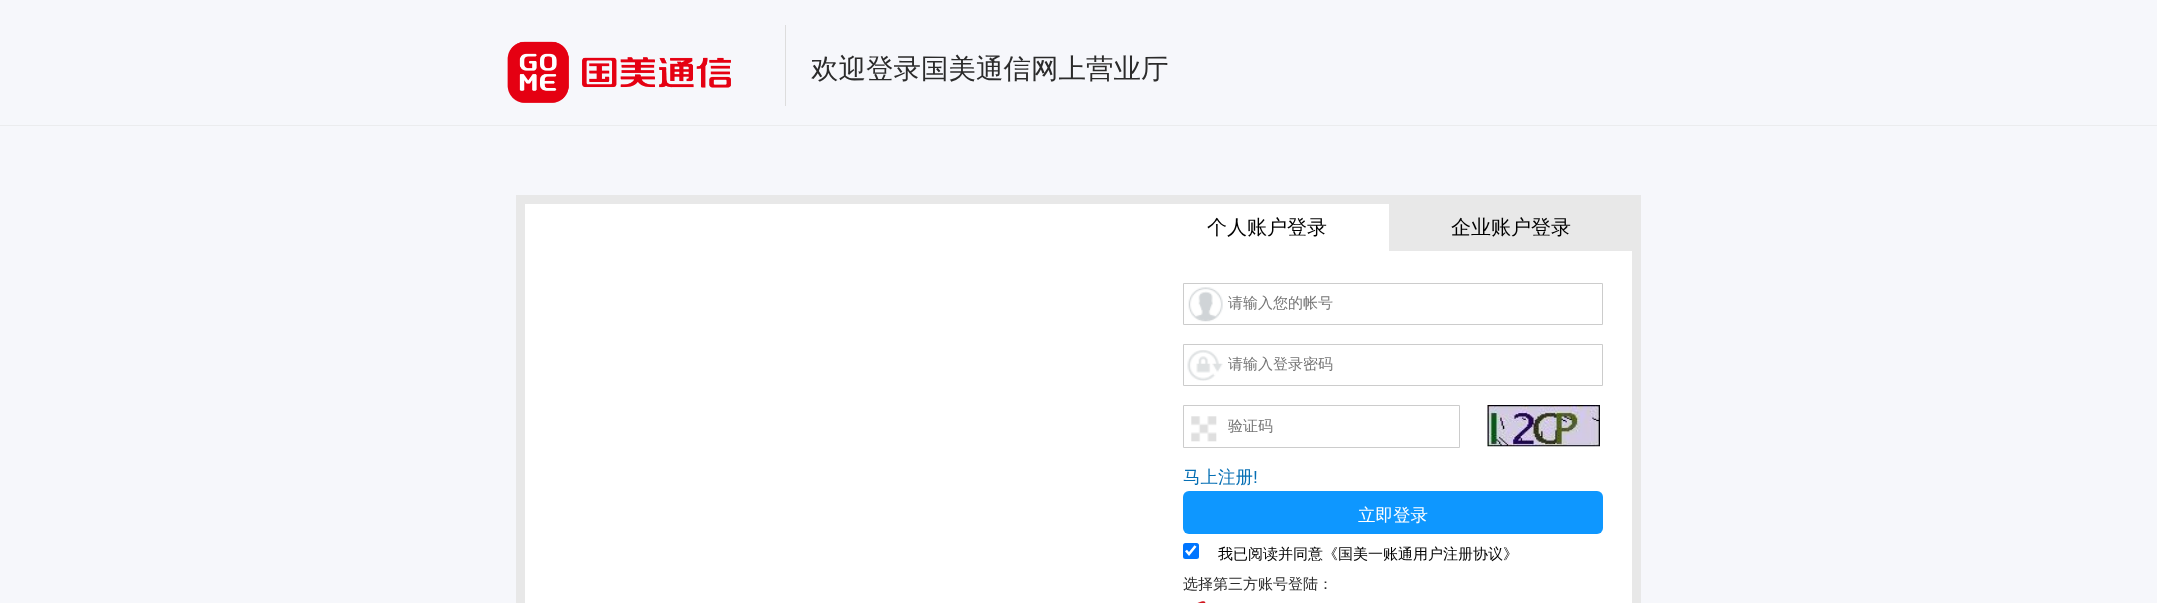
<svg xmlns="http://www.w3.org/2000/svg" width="2157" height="603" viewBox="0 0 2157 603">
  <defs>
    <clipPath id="clip1"><path d="M1228 416h191v22H1228z"/></clipPath>
  </defs>
  <rect width="100%" height="100%" fill="#f6f7fb"/>
  <path d="M0 125h2157v1H0z" fill="#ebecee"/>
  <path d="M785 25h1v81H785z" fill="#ddd"/>
  <image x="507" y="41" width="224" height="62" href="img/1.png"/>
  <path d="M520.5 199.5h1116v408H520.5z" fill="#fff" stroke="#e8e8e8" stroke-width="9"/>
  <path d="M1389 204h243v47H1389z" fill="#e8e8e8"/>
  <path d="M1183.5 283.5h419v41H1183.5z" fill="none" stroke="#ccc"/>
  <image x="1188" y="287" width="35" height="35" href="img/2.png"/>
  <path d="M1183.5 344.5h419v41H1183.5z" fill="none" stroke="#ccc"/>
  <image x="1187" y="350" width="36" height="31" href="img/3.png"/>
  <path d="M1183.5 405.5h276v42H1183.5z" fill="none" stroke="#ccc"/>
  <image x="1191" y="416" width="26" height="26" href="img/4.png"/>
  <image x="1487" y="405" width="113" height="42" href="img/5.png"/>
  <rect x="1183" y="491" width="420" height="43" rx="6" fill="#0e97ff"/>
  <rect x="1183" y="543" width="16" height="16" rx="2.5" fill="#0075ff"/>
  <path d="M1186 550.5L1189 554L1195.5 546" fill="none" stroke="#fff" stroke-width="2.6"/>
  <image x="1197" y="601" width="9" height="2" href="img/6.png"/>
  <text x="811" y="78" font-family="WenQuanYi Zen Hei" font-size="27.5" font-weight="500" fill="#2b2b2b">欢迎登录国美通信网上营业厅</text>
  <g font-family="WenQuanYi Zen Hei" font-size="20" font-weight="500" fill="#000">
    <text x="1207" y="234">个人账户登录</text>
    <text x="1451" y="234">企业账户登录</text>
  </g>
  <g font-family="WenQuanYi Zen Hei" font-size="15" font-weight="500" fill="#757575">
    <text x="1228" y="308">请输入您的帐号</text>
    <text x="1228" y="369">请输入登录密码</text>
  </g>
  <g clip-path="url(#clip1)">
    <text x="1228" y="431" font-family="WenQuanYi Zen Hei" font-size="15" font-weight="500" fill="#757575">验证码</text>
  </g>
  <text x="1183" y="483" font-family="WenQuanYi Zen Hei" font-size="17.5" font-weight="500" fill="#066fb4">马上注册</text>
  <text x="1253" y="483" font-family="Liberation Sans" font-size="17.5" fill="#066fb4">!</text>
  <text x="1358" y="521" font-family="WenQuanYi Zen Hei" font-size="17.5" font-weight="500" fill="#fff">立即登录</text>
  <text x="1218" y="559" font-family="WenQuanYi Zen Hei" font-size="15" font-weight="500" fill="#000">我已阅读并同意《国美一账通用户注册协议》</text>
  <text x="1183" y="589" font-family="WenQuanYi Zen Hei" font-size="15" font-weight="500" fill="#2b2b2b">选择第三方账号登陆：</text>
</svg>
